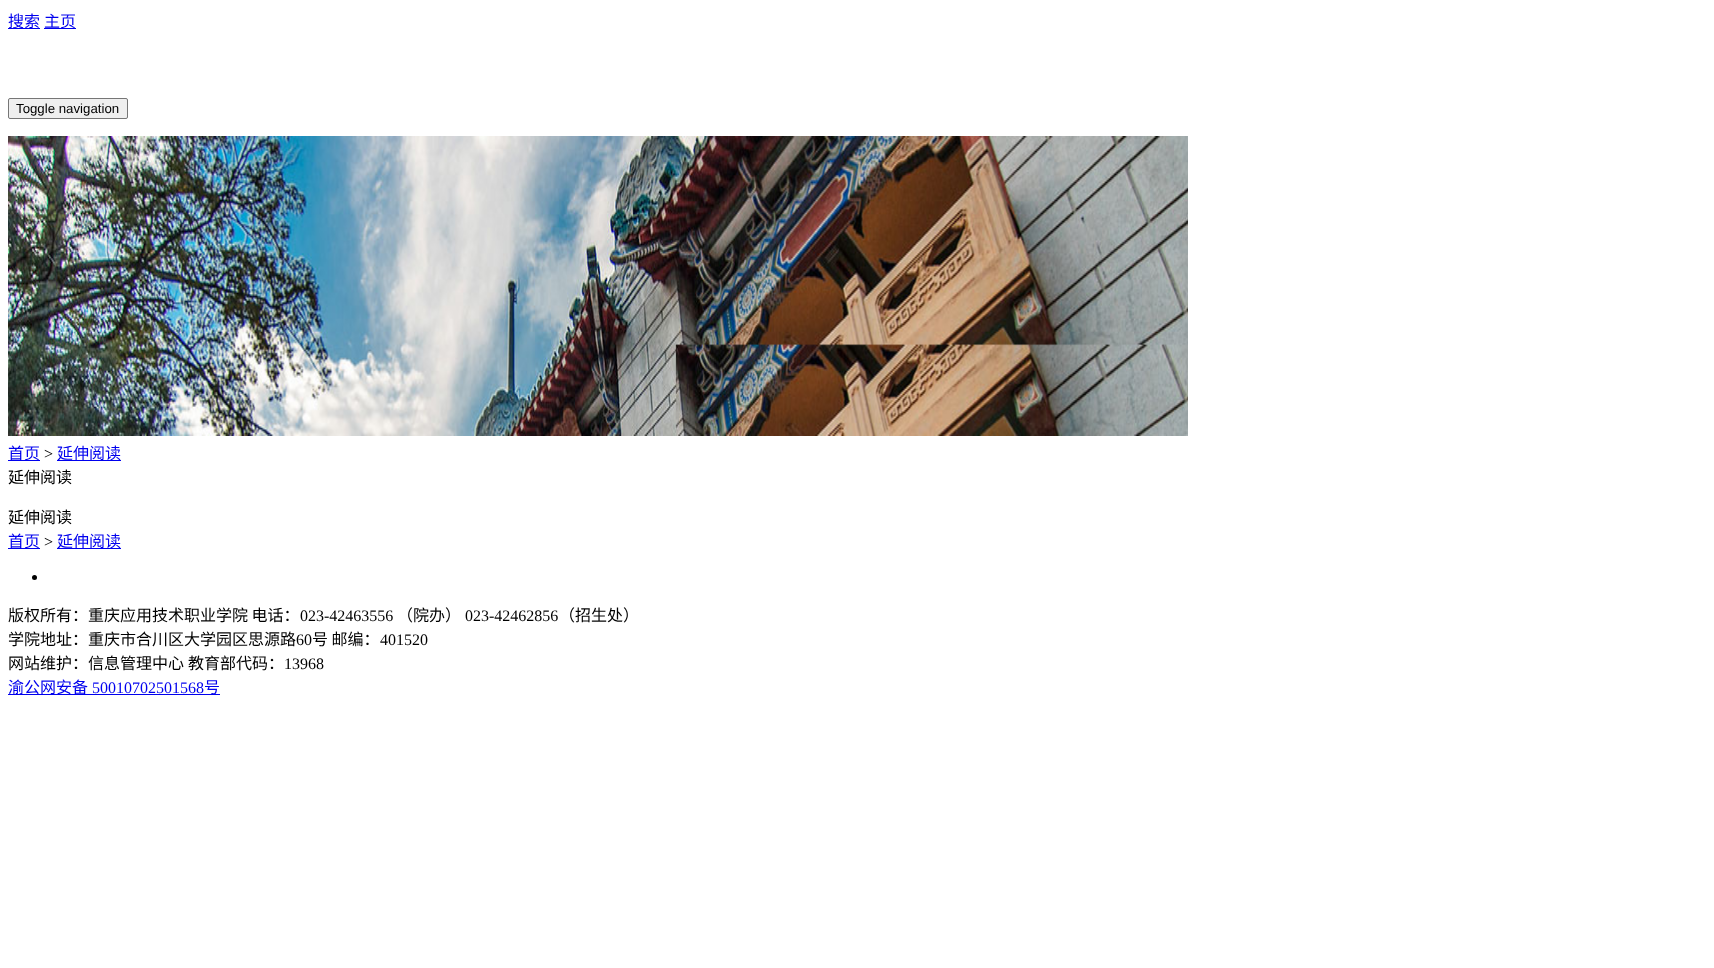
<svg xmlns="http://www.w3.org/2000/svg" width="1714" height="968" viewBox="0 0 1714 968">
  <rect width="100%" height="100%" fill="#fff"/>
  <path d="M8 28h32v1H8z" fill="#00e"/>
  <path d="M44 28h32v1H44z" fill="#00e"/>
  <rect x="8.5" y="98.5" width="119" height="20" rx="1.5" fill="#efefef" stroke="#767676"/>
  <image x="8" y="136" width="1180" height="300" href="img/1.png"/>
  <path d="M8 460h32v1H8z" fill="#00e"/>
  <path d="M57 460h64v1H57z" fill="#00e"/>
  <path d="M8 548h32v1H8z" fill="#00e"/>
  <path d="M57 548h64v1H57z" fill="#00e"/>
  <circle cx="34.5" cy="577.5" r="2.5" fill="#000"/>
  <path d="M8 694h212v1H8z" fill="#00e"/>
  <g font-family="Noto Sans CJK SC" font-size="16" fill="#00e">
    <text x="8" y="27">搜索</text>
    <text x="44" y="27">主页</text>
  </g>
  <text x="16" y="113" font-family="Liberation Sans" font-size="13.25" fill="#000">Toggle navigation</text>
  <text x="8" y="459" font-family="Noto Sans CJK SC" font-size="16" fill="#00e">首页</text>
  <text x="44" y="459" font-family="Liberation Serif" font-size="16" fill="#000">&gt;</text>
  <text x="57" y="459" font-family="Noto Sans CJK SC" font-size="16" fill="#00e">延伸阅读</text>
  <g font-family="Noto Sans CJK SC" font-size="16" fill="#000">
    <text x="8" y="483">延伸阅读</text>
    <text x="8" y="523">延伸阅读</text>
  </g>
  <text x="8" y="547" font-family="Noto Sans CJK SC" font-size="16" fill="#00e">首页</text>
  <text x="44" y="547" font-family="Liberation Serif" font-size="16" fill="#000">&gt;</text>
  <text x="57" y="547" font-family="Noto Sans CJK SC" font-size="16" fill="#00e">延伸阅读</text>
  <text x="8" y="621" font-family="Noto Sans CJK SC" font-size="16" fill="#000">版权所有：重庆应用技术职业学院 电话：</text>
  <text x="300" y="621" font-family="Liberation Serif" font-size="16" fill="#000">023-42463556</text>
  <text x="397" y="621" font-family="Noto Sans CJK SC" font-size="16" fill="#000">（院办）</text>
  <text x="465" y="621" font-family="Liberation Serif" font-size="16" fill="#000">023-42462856</text>
  <g font-family="Noto Sans CJK SC" font-size="16" fill="#000">
    <text x="559" y="621">（招生处）</text>
    <text x="8" y="645">学院地址：重庆市合川区大学园区思源路</text>
  </g>
  <text x="296" y="645" font-family="Liberation Serif" font-size="16" fill="#000">60</text>
  <text x="312" y="645" font-family="Noto Sans CJK SC" font-size="16" fill="#000">号 邮编：</text>
  <text x="380" y="645" font-family="Liberation Serif" font-size="16" fill="#000">401520</text>
  <g font-family="Noto Sans CJK SC" font-size="16" fill="#000">
    <text x="8" y="669">网站维护：信息管理中心</text>
    <text x="188" y="669">教育部代码：</text>
  </g>
  <text x="284" y="669" font-family="Liberation Serif" font-size="16" fill="#000">13968</text>
  <text x="8" y="693" font-family="Noto Sans CJK SC" font-size="16" fill="#00e">渝公网安备</text>
  <text x="92" y="693" font-family="Liberation Serif" font-size="16" fill="#00e">50010702501568</text>
  <text x="204" y="693" font-family="Noto Sans CJK SC" font-size="16" fill="#00e">号</text>
</svg>
